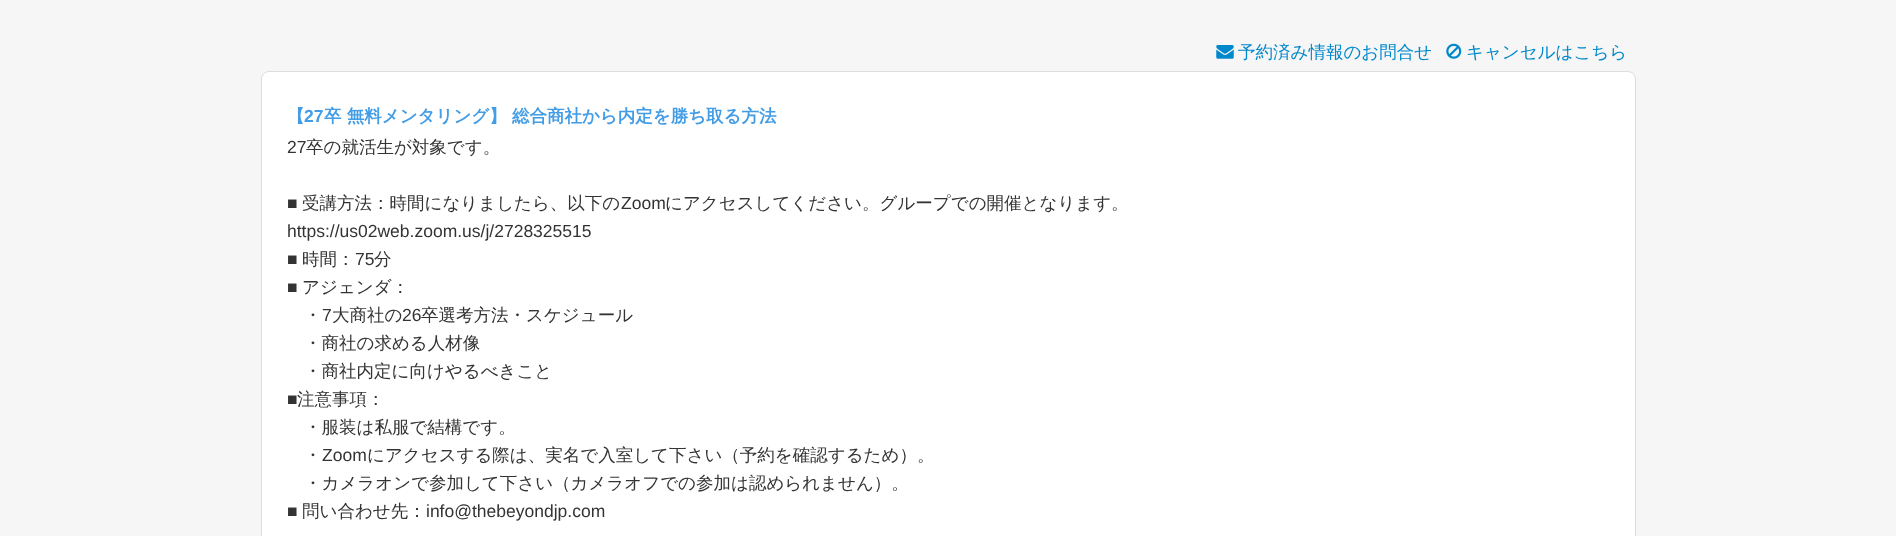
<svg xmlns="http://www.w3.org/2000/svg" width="1896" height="536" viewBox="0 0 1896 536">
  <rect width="100%" height="100%" fill="#f6f6f6"/>
  <image x="1216" y="45" width="18" height="14" href="img/1.png"/>
  <image x="1446" y="43" width="16" height="16" href="img/2.png"/>
  <rect x="261.5" y="71.5" width="1374" height="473" rx="7.5" fill="#fff" stroke="#ddd"/>
  <g font-family="WenQuanYi Zen Hei" font-size="17.5" font-weight="500" fill="#08c">
    <text x="1238" y="58">予約済み情報のお問合せ</text>
    <text x="1466" y="58">キャンセルはこちら</text>
  </g>
  <text x="287" y="122" font-family="WenQuanYi Zen Hei" font-size="17.5" font-weight="bold" fill="#429ce6">【</text>
  <text x="304" y="122" font-family="Liberation Sans" font-size="17.5" font-weight="bold" fill="#429ce6">27</text>
  <text x="324" y="122" font-family="WenQuanYi Zen Hei" font-size="17.5" font-weight="bold" fill="#429ce6">卒 無料メンタリング】 総合商社から内定を勝ち取る方法</text>
  <text x="287" y="153" font-family="Liberation Sans" font-size="17.5" fill="#333">27</text>
  <text x="306" y="153" font-family="WenQuanYi Zen Hei" font-size="17.5" font-weight="500" fill="#333">卒の就活生が対象です。</text>
  <text x="287" y="209" font-family="Liberation Sans" font-size="17.5" fill="#333">■</text>
  <text x="302" y="209" font-family="WenQuanYi Zen Hei" font-size="17.5" font-weight="500" fill="#333">受講方法：時間になりましたら、以下の</text>
  <text x="621" y="209" font-family="Liberation Sans" font-size="17.5" fill="#333">Zoom</text>
  <text x="665" y="209" font-family="WenQuanYi Zen Hei" font-size="17.5" font-weight="500" fill="#333">にアクセスしてください。グループでの開催となります。</text>
  <g font-family="Liberation Sans" font-size="17.5" fill="#333">
    <text x="287" y="237">https://us02web.zoom.us/j/2728325515</text>
    <text x="287" y="265">■</text>
  </g>
  <text x="302" y="265" font-family="WenQuanYi Zen Hei" font-size="17.5" font-weight="500" fill="#333">時間：</text>
  <text x="355" y="265" font-family="Liberation Sans" font-size="17.5" fill="#333">75</text>
  <text x="374" y="265" font-family="WenQuanYi Zen Hei" font-size="17.5" font-weight="500" fill="#333">分</text>
  <text x="287" y="293" font-family="Liberation Sans" font-size="17.5" fill="#333">■</text>
  <g font-family="WenQuanYi Zen Hei" font-size="17.5" font-weight="500" fill="#333">
    <text x="302" y="293">アジェンダ：</text>
    <text x="304" y="321">・</text>
  </g>
  <text x="322" y="321" font-family="Liberation Sans" font-size="17.5" fill="#333">7</text>
  <text x="332" y="321" font-family="WenQuanYi Zen Hei" font-size="17.5" font-weight="500" fill="#333">大商社の</text>
  <text x="402" y="321" font-family="Liberation Sans" font-size="17.5" fill="#333">26</text>
  <g font-family="WenQuanYi Zen Hei" font-size="17.5" font-weight="500" fill="#333">
    <text x="421" y="321">卒選考方法・スケジュール</text>
    <text x="304" y="349">・商社の求める人材像</text>
    <text x="304" y="377">・商社内定に向けやるべきこと</text>
  </g>
  <text x="287" y="405" font-family="Liberation Sans" font-size="17.5" fill="#333">■</text>
  <g font-family="WenQuanYi Zen Hei" font-size="17.5" font-weight="500" fill="#333">
    <text x="297" y="405">注意事項：</text>
    <text x="304" y="433">・服装は私服で結構です。</text>
    <text x="304" y="461">・</text>
  </g>
  <text x="322" y="461" font-family="Liberation Sans" font-size="17.5" fill="#333">Zoom</text>
  <g font-family="WenQuanYi Zen Hei" font-size="17.5" font-weight="500" fill="#333">
    <text x="367" y="461">にアクセスする際は、実名で入室して下さい（予約を確認するため）。</text>
    <text x="304" y="489">・カメラオンで参加して下さい（カメラオフでの参加は認められません）。</text>
  </g>
  <text x="287" y="517" font-family="Liberation Sans" font-size="17.5" fill="#333">■</text>
  <text x="302" y="517" font-family="WenQuanYi Zen Hei" font-size="17.5" font-weight="500" fill="#333">問い合わせ先：</text>
  <text x="426" y="517" font-family="Liberation Sans" font-size="17.5" fill="#333">info@thebeyondjp.com</text>
</svg>
